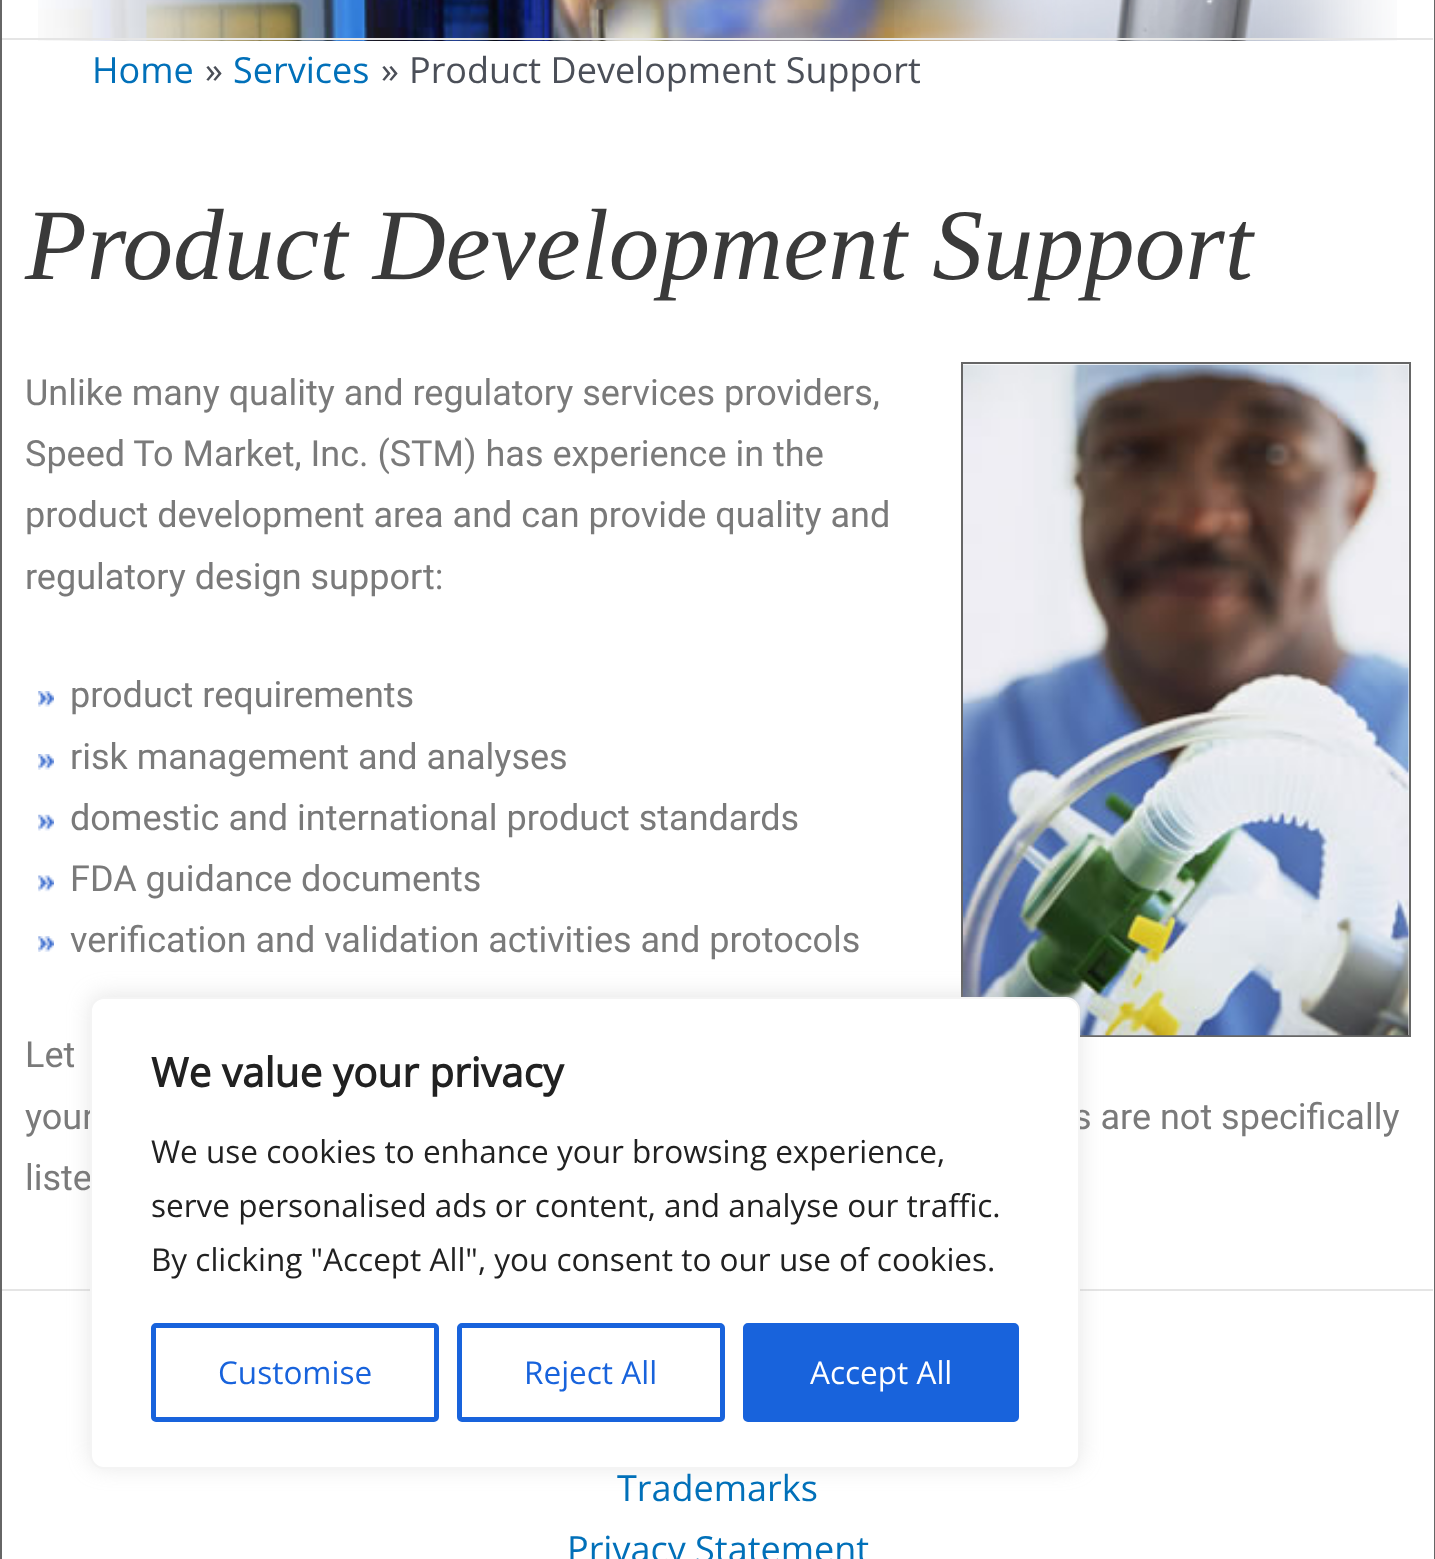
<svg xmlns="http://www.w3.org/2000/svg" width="1435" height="1559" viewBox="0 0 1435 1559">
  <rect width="100%" height="100%" fill="#fff"/>
  <path d="M1 -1h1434v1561H1z" fill="none" stroke="#666" stroke-width="2"/>
  <image x="38" y="0" width="1359" height="41" href="img/1.png"/>
  <path d="M2 38h1431v2H2z" fill="#e5e5e5"/>
  <path d="M962 363h448v673H962z" fill="none" stroke="#666" stroke-width="2"/>
  <image x="963" y="364" width="446" height="672" href="img/2.png"/>
  <image x="38" y="691" width="16" height="16" href="img/3.png"/>
  <image x="38" y="754" width="16" height="16" href="img/3.png"/>
  <image x="38" y="814" width="16" height="17" href="img/4.png"/>
  <image x="38" y="875" width="16" height="17" href="img/5.png"/>
  <image x="38" y="936" width="16" height="16" href="img/6.png"/>
  <path d="M2 1289h1431v2H2z" fill="#e5e5e5"/>
  <rect x="90" y="995" width="990" height="472" rx="14" fill="#acabab4d" filter="blur(11px)"/>
  <text x="92" y="83" font-family="Open Sans" font-size="36" fill="#0170b9">Home</text>
  <text x="205" y="83" font-family="Open Sans" font-size="36" fill="#4b4f58">»</text>
  <text x="233" y="83" font-family="Open Sans" font-size="36" fill="#0170b9">Services</text>
  <g font-family="Open Sans" font-size="36" fill="#4b4f58">
    <text x="381" y="83">»</text>
    <text x="409" y="83">Product Development Support</text>
  </g>
  <text x="25" y="279" font-family="Liberation Serif" font-size="101.25" font-style="italic" fill="#3a3a3a">Product Development Support</text>
  <g font-family="Roboto" font-size="36" fill="#7a7a7a">
    <text x="25" y="405">Unlike many quality and regulatory services providers,</text>
    <text x="25" y="466">Speed To Market, Inc. (STM) has experience in the</text>
    <text x="25" y="527">product development area and can provide quality and</text>
    <text x="25" y="589">regulatory design support:</text>
    <text x="70" y="707">product requirements</text>
    <text x="70" y="769">risk management and analyses</text>
    <text x="70" y="830">domestic and international product standards</text>
    <text x="70" y="891">FDA guidance documents</text>
    <text x="70" y="952">verification and validation activities and protocols</text>
    <text x="25" y="1067">Let</text>
    <text x="25" y="1129">your</text>
    <text x="1073" y="1129">s are not specifically</text>
    <text x="25" y="1190">liste</text>
  </g>
  <g font-family="Open Sans" font-size="36" fill="#0170b9">
    <text x="617" y="1501">Trademarks</text>
    <text x="567" y="1562">Privacy Statement</text>
  </g>
  <rect x="91" y="998" width="988" height="470" rx="13" fill="#fff" stroke="#f4f4f4" stroke-width="2"/>
  <text x="151" y="1087" font-family="Open Sans" font-size="40.5" font-weight="bold" fill="#212121">We value your privacy</text>
  <g font-family="Open Sans" font-size="31.5" fill="#212121">
    <text x="151" y="1163">We use cookies to enhance your browsing experience,</text>
    <text x="151" y="1217">serve personalised ads or content, and analyse our traffic.</text>
    <text x="151" y="1271">By clicking "Accept All", you consent to our use of cookies.</text>
  </g>
  <rect x="153.5" y="1325.5" width="283" height="94" rx="2.5" fill="none" stroke="#1863dc" stroke-width="5"/>
  <text x="218" y="1384" font-family="Open Sans" font-size="31.5" fill="#1863dc">Customise</text>
  <rect x="459.5" y="1325.5" width="263" height="94" rx="2.5" fill="none" stroke="#1863dc" stroke-width="5"/>
  <text x="524" y="1384" font-family="Open Sans" font-size="31.5" fill="#1863dc">Reject All</text>
  <rect x="745.5" y="1325.5" width="271" height="94" rx="2.5" fill="#1863dc" stroke="#1863dc" stroke-width="5"/>
  <text x="810" y="1384" font-family="Open Sans" font-size="31.5" fill="#fff">Accept All</text>
</svg>
